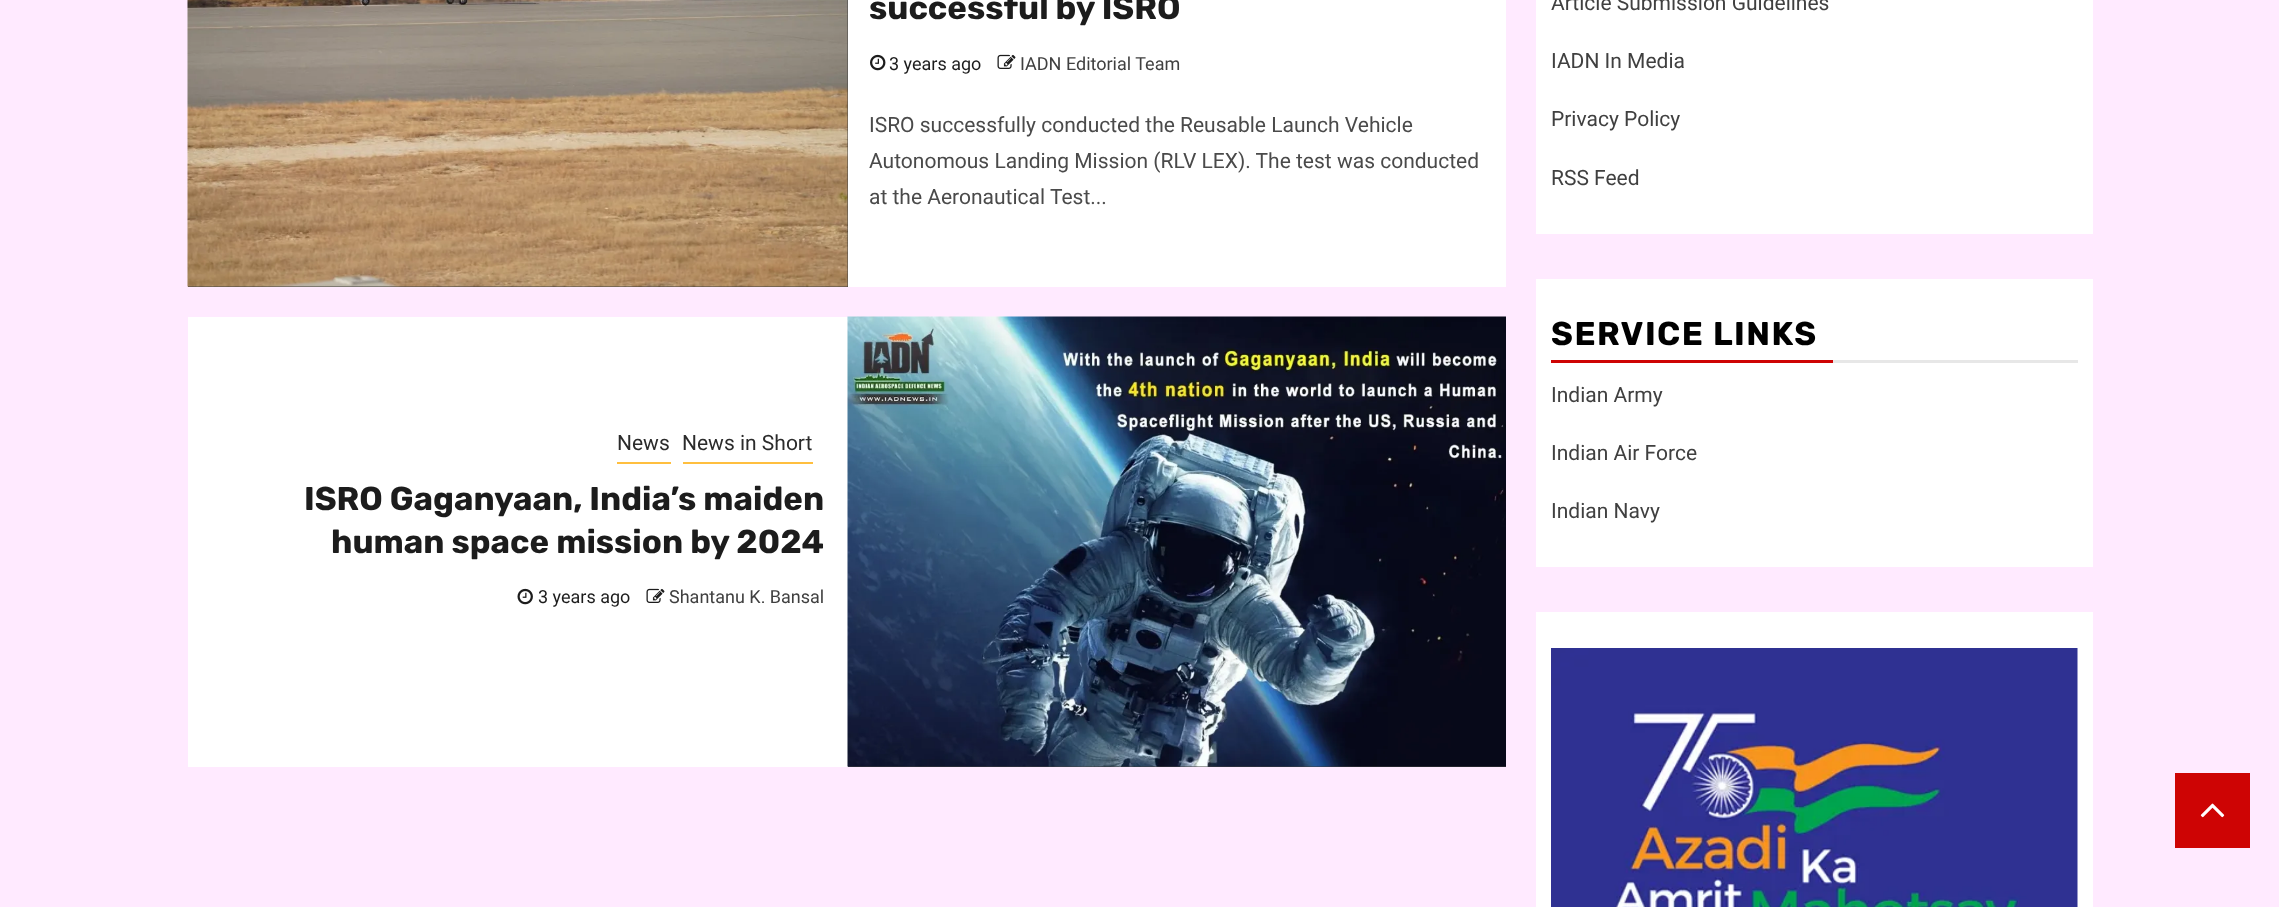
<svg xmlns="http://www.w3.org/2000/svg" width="2279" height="907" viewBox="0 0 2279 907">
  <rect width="100%" height="100%" fill="#ffeaff"/>
  <path d="M848 0h658v287H848z" fill="#fff"/>
  <path d="M188 0h660v287H188z" fill="#404040"/>
  <image x="187" y="0" width="661" height="287" href="img/1.png"/>
  <image x="870" y="54" width="16" height="17" href="img/2.png"/>
  <image x="997" y="54" width="19" height="15" href="img/3.png"/>
  <path d="M188 317h660v450H188z" fill="#fff"/>
  <path d="M617 462h54v2H617z" fill="#ffbf3f"/>
  <path d="M683 462h130v2H683z" fill="#ffbf3f"/>
  <image x="517" y="588" width="16" height="17" href="img/4.png"/>
  <image x="646" y="588" width="19" height="15" href="img/3.png"/>
  <path d="M848 766h658v1H848z" fill="#404040"/>
  <image x="847" y="316" width="659" height="451" href="img/5.png"/>
  <path d="M1536 0h557v234H1536z" fill="#fff"/>
  <path d="M1536 279h557v288H1536z" fill="#fff"/>
  <path d="M1551 360h282v3H1551z" fill="#ce0404"/>
  <path d="M1833 360h245v3H1833z" fill="#e7e7e7"/>
  <path d="M1536 612h557v295H1536z" fill="#fff"/>
  <image x="1551" y="648" width="527" height="259" href="img/6.png"/>
  <path d="M2175 773h75v75H2175z" fill="#ce0404"/>
  <image x="2200" y="803" width="25" height="15" href="img/7.png"/>
  <text x="869" y="19" font-family="Rubik" font-size="33" font-weight="bold" fill="#1c1c1c">successful by ISRO</text>
  <text x="889" y="70" font-family="Roboto" font-size="18" fill="#1c1c1c">3 years ago</text>
  <text x="1020" y="70" font-family="Roboto" font-size="18" fill="#404040">IADN Editorial Team</text>
  <g font-family="Roboto" font-size="21" fill="#4a4a4a">
    <text x="869" y="132">ISRO successfully conducted the Reusable Launch Vehicle</text>
    <text x="869" y="168">Autonomous Landing Mission (RLV LEX). The test was conducted</text>
    <text x="869" y="204">at the Aeronautical Test...</text>
  </g>
  <g font-family="Roboto" font-size="21" fill="#2b2b2b">
    <text x="617" y="450">News</text>
    <text x="682" y="450">News in Short</text>
  </g>
  <g font-family="Rubik" font-size="33" font-weight="bold" fill="#1c1c1c">
    <text x="304" y="510">ISRO Gaganyaan, India’s maiden</text>
    <text x="331" y="553">human space mission by 2024</text>
  </g>
  <text x="538" y="603" font-family="Roboto" font-size="18" fill="#1c1c1c">3 years ago</text>
  <text x="669" y="603" font-family="Roboto" font-size="18" fill="#404040">Shantanu K. Bansal</text>
  <g font-family="Roboto" font-size="21" fill="#404040">
    <text x="1551" y="10">Article Submission Guidelines</text>
    <text x="1551" y="68">IADN In Media</text>
    <text x="1551" y="126">Privacy Policy</text>
    <text x="1551" y="185">RSS Feed</text>
  </g>
  <text x="1551" y="345" font-family="Rubik" font-size="33" font-weight="bold" letter-spacing="1.5" fill="#000">SERVICE LINKS</text>
  <g font-family="Roboto" font-size="21" fill="#404040">
    <text x="1551" y="402">Indian Army</text>
    <text x="1551" y="460">Indian Air Force</text>
    <text x="1551" y="518">Indian Navy</text>
  </g>
</svg>
